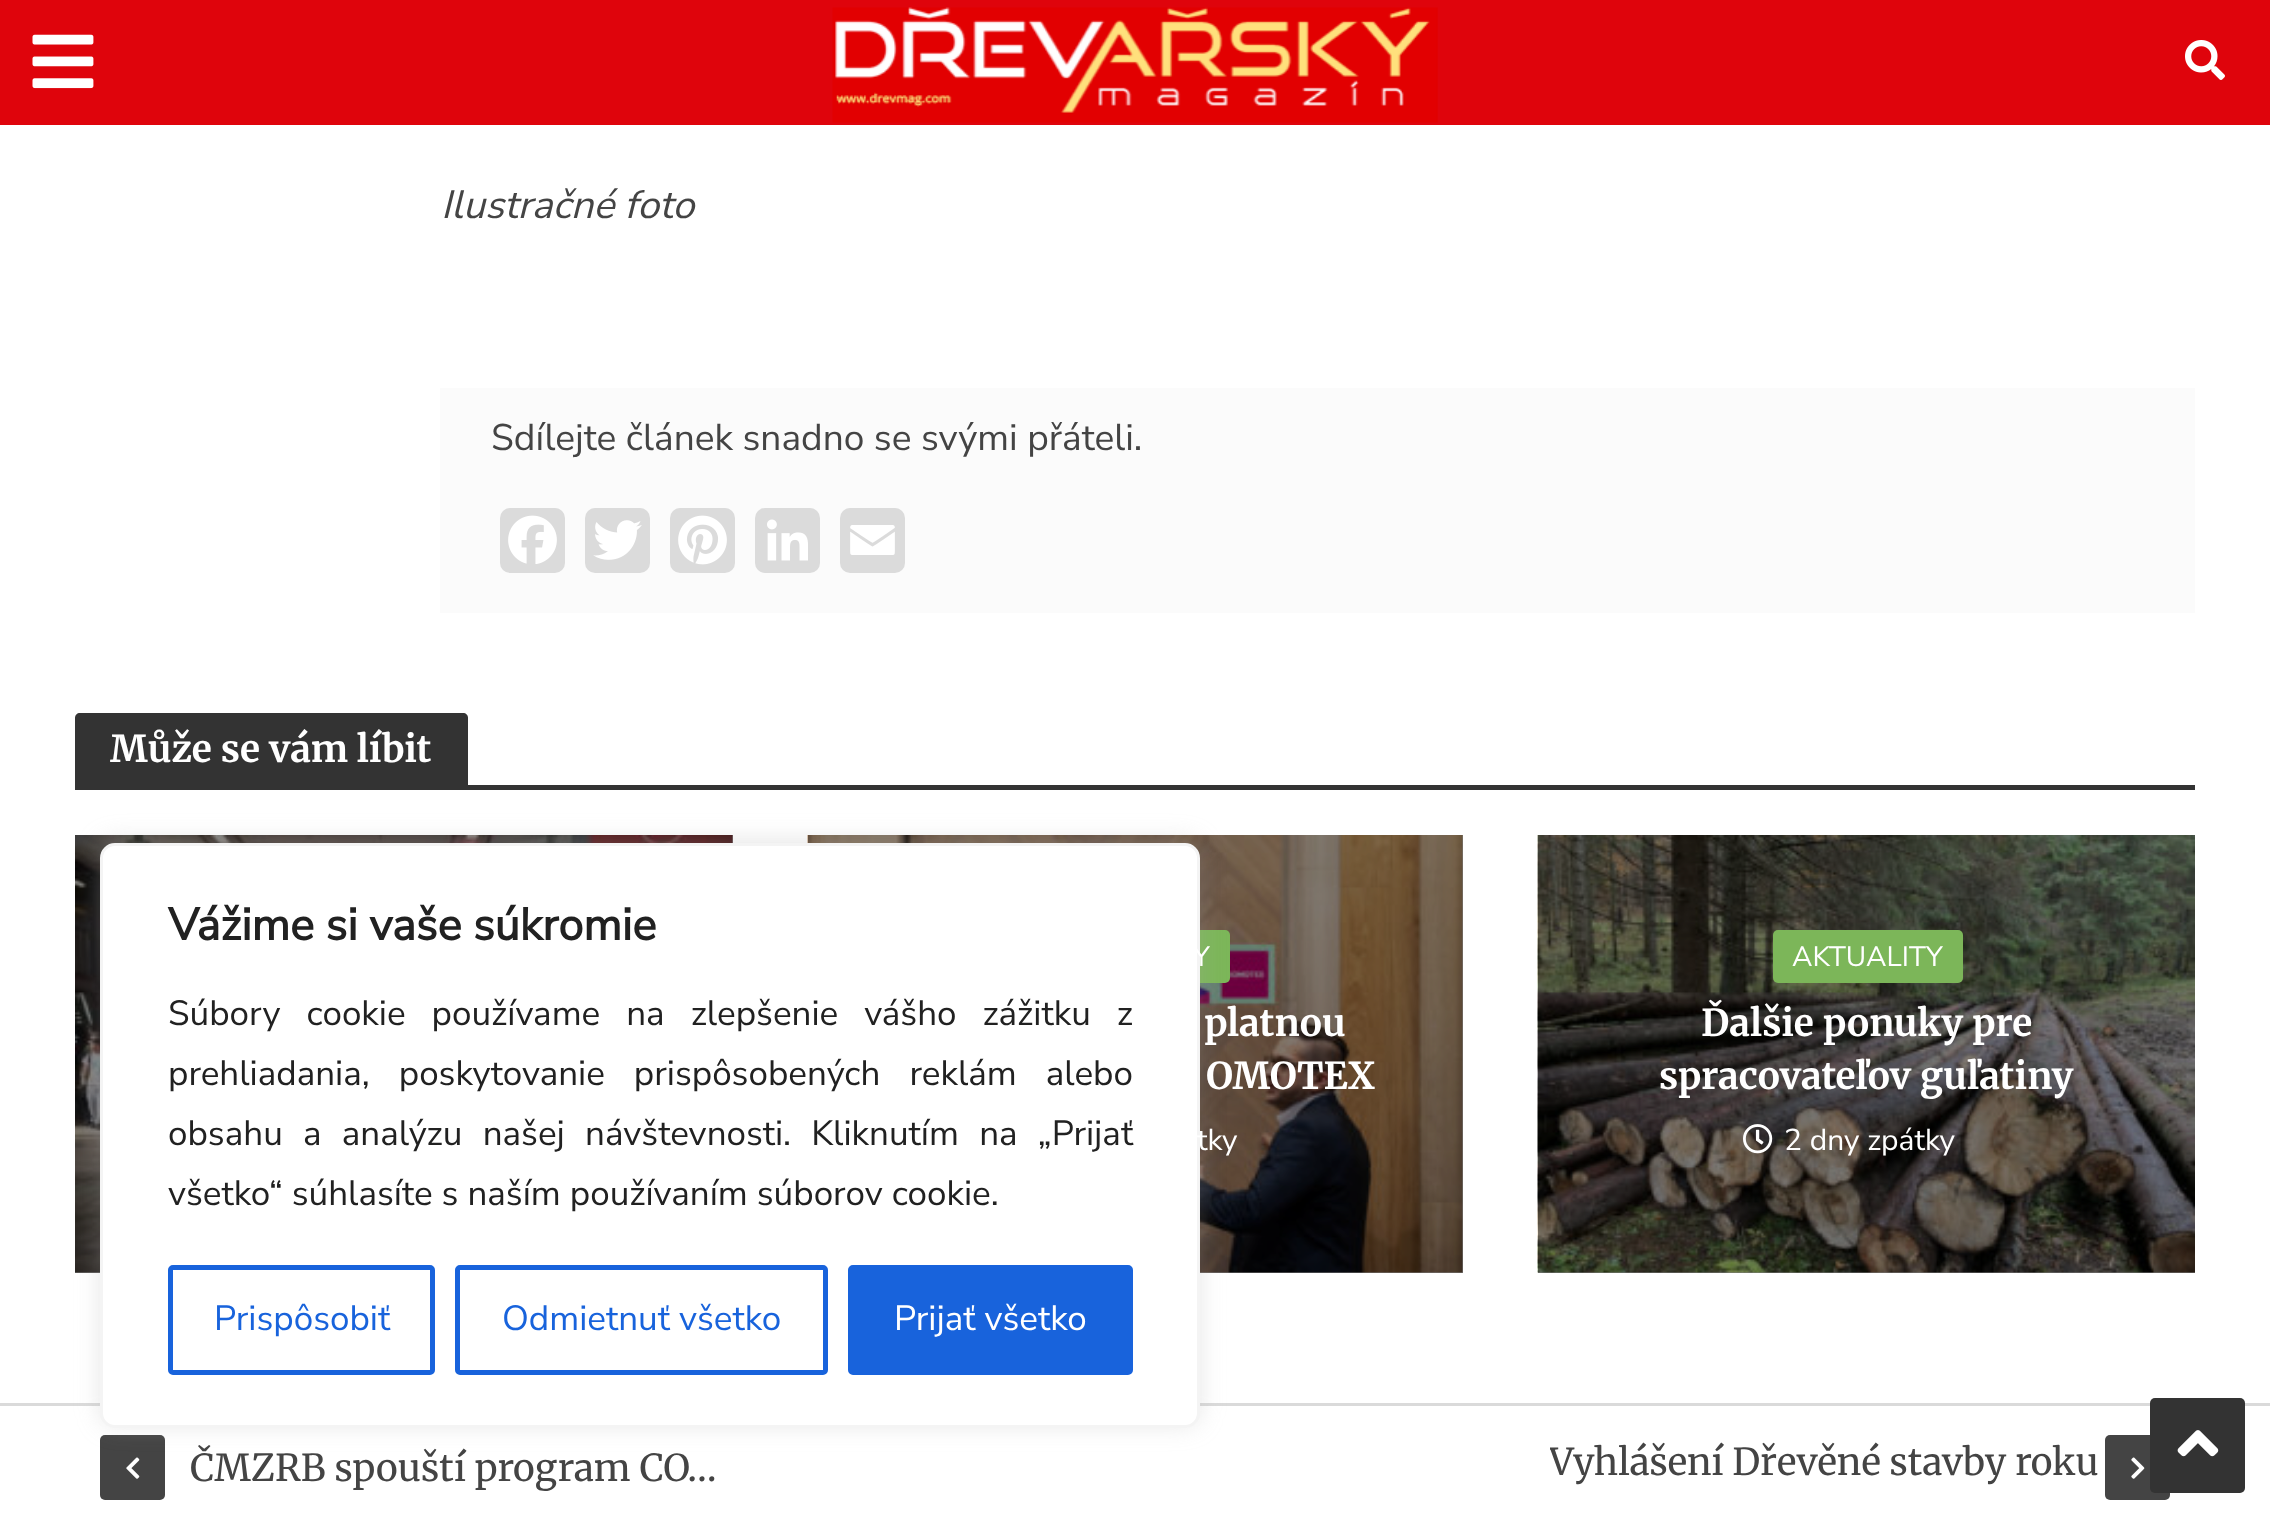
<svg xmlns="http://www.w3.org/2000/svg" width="2270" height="1527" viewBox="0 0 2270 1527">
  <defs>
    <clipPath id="clip1"><path d="M1550 1435h620v65H1550z"/></clipPath>
  </defs>
  <rect width="100%" height="100%" fill="#fff"/>
  <path d="M0 0h2270v125H0z" fill="#df040c"/>
  <image x="32" y="34" width="62" height="55" href="img/1.png"/>
  <image x="832" y="7" width="606" height="116" href="img/2.png"/>
  <image x="2185" y="40" width="40" height="40" href="img/3.png"/>
  <path d="M440 388h1755v225H440z" fill="#fbfbfb"/>
  <rect x="500" y="508" width="65" height="65" rx="10" fill="#dbdbdb"/>
  <image x="508" y="515" width="49" height="49" href="img/4.png"/>
  <rect x="585" y="508" width="65" height="65" rx="10" fill="#dbdbdb"/>
  <image x="593" y="520" width="49" height="40" href="img/5.png"/>
  <rect x="670" y="508" width="65" height="65" rx="10" fill="#dbdbdb"/>
  <image x="678" y="515" width="49" height="50" href="img/6.png"/>
  <rect x="755" y="508" width="65" height="65" rx="10" fill="#dbdbdb"/>
  <image x="767" y="519" width="41" height="42" href="img/7.png"/>
  <rect x="840" y="508" width="65" height="65" rx="10" fill="#dbdbdb"/>
  <image x="850" y="525" width="45" height="30" href="img/8.png"/>
  <path d="M80 713H463C466 713 468 715 468 718V785H75V718C75 715 77 713 80 713Z" fill="#333"/>
  <path d="M75 785h2120v5H75z" fill="#333"/>
  <path d="M75 835h658v438H75z" fill="#7f7e7e"/>
  <image x="75" y="835" width="658" height="438" href="img/9.png"/>
  <path d="M1200 835h263v438H1200z" fill="#7f7e7e"/>
  <image x="807" y="835" width="656" height="438" href="img/10.png"/>
  <rect x="1040" y="930" width="190" height="53" rx="5" fill="#7cb659"/>
  <path d="M1538 1272h657v1H1538z" fill="#7f7e7e"/>
  <image x="1537" y="835" width="658" height="438" href="img/11.png"/>
  <rect x="1773" y="930" width="190" height="53" rx="5" fill="#7cb659"/>
  <image x="1743" y="1124" width="30" height="30" href="img/12.png"/>
  <path d="M0 1403h2270v3H0z" fill="#dadada"/>
  <rect x="100" y="1435" width="65" height="65" rx="5" fill="#444"/>
  <image x="126" y="1457" width="14" height="22" href="img/13.png"/>
  <rect x="2105" y="1435" width="65" height="65" rx="5" fill="#444"/>
  <image x="2131" y="1457" width="14" height="22" href="img/14.png"/>
  <rect x="100" y="840" width="1100" height="585" rx="15" fill="#acabab4d" filter="blur(12.5px)"/>
  <rect x="101.5" y="844.5" width="1097" height="582" rx="13.5" fill="#fff" stroke="#f4f4f4" stroke-width="3"/>
  <rect x="170.5" y="1267.5" width="262" height="105" rx="2.5" fill="none" stroke="#1863dc" stroke-width="5"/>
  <rect x="457.5" y="1267.5" width="368" height="105" rx="2.5" fill="none" stroke="#1863dc" stroke-width="5"/>
  <rect x="850.5" y="1267.5" width="280" height="105" rx="2.5" fill="#1863dc" stroke="#1863dc" stroke-width="5"/>
  <rect x="2150" y="1398" width="95" height="95" rx="5" fill="#333"/>
  <image x="2177" y="1430" width="42" height="27" href="img/15.png"/>
  <text x="441" y="218" font-family="Nunito Sans" font-size="39.5" font-weight="200" font-style="italic" fill="#444">Ilustračné foto</text>
  <text x="491" y="450" font-family="Nunito Sans" font-size="37.1" font-weight="200" fill="#444">Sdílejte článek snadno se svými přáteli.</text>
  <text x="110" y="762" font-family="Merriweather" font-size="37.1" font-weight="bold" fill="#fff">Může se vám líbit</text>
  <text x="1193" y="966" font-family="Nunito Sans" font-size="28" font-weight="200" fill="#fff">Y</text>
  <g font-family="Merriweather" font-size="37.1" font-weight="bold" fill="#fff">
    <text x="1204" y="1036">platnou</text>
    <text x="1206" y="1089">OMOTEX</text>
  </g>
  <text x="1197" y="1150" font-family="Nunito Sans" font-size="30" font-weight="200" fill="#fff">tky</text>
  <text x="1792" y="966" font-family="Nunito Sans" font-size="28" font-weight="200" fill="#fff">AKTUALITY</text>
  <g font-family="Merriweather" font-size="37.1" font-weight="bold" fill="#fff">
    <text x="1701" y="1036">Ďalšie ponuky pre</text>
    <text x="1659" y="1089">spracovateľov guľatiny</text>
  </g>
  <text x="1784" y="1150" font-family="Nunito Sans" font-size="30" font-weight="200" fill="#fff">2 dny zpátky</text>
  <text x="190" y="1481" font-family="Merriweather" font-size="37.1" fill="#444">ČMZRB spouští program CO…</text>
  <g clip-path="url(#clip1)">
    <text x="1549" y="1475" font-family="Merriweather" font-size="37.1" fill="#444">Vyhlášení Dřevěné stavby roku</text>
  </g>
  <text x="168" y="940" font-family="Nunito Sans" font-size="45" font-weight="bold" fill="#212121">Vážime si vaše súkromie</text>
  <g font-family="Nunito Sans" font-size="35" font-weight="200" fill="#212121">
    <text x="168" y="1025" word-spacing="17">Súbory cookie používame na zlepšenie vášho zážitku z</text>
    <text x="168" y="1085" word-spacing="20">prehliadania, poskytovanie prispôsobených reklám alebo</text>
    <text x="168" y="1145" word-spacing="11.25">obsahu a analýzu našej návštevnosti. Kliknutím na „Prijať</text>
    <text x="168" y="1205">všetko“ súhlasíte s naším používaním súborov cookie.</text>
  </g>
  <g font-family="Nunito Sans" font-size="35" font-weight="200" fill="#1863dc">
    <text x="214" y="1330">Prispôsobiť</text>
    <text x="502" y="1330">Odmietnuť všetko</text>
  </g>
  <text x="894" y="1330" font-family="Nunito Sans" font-size="35" font-weight="200" fill="#fff">Prijať všetko</text>
</svg>
